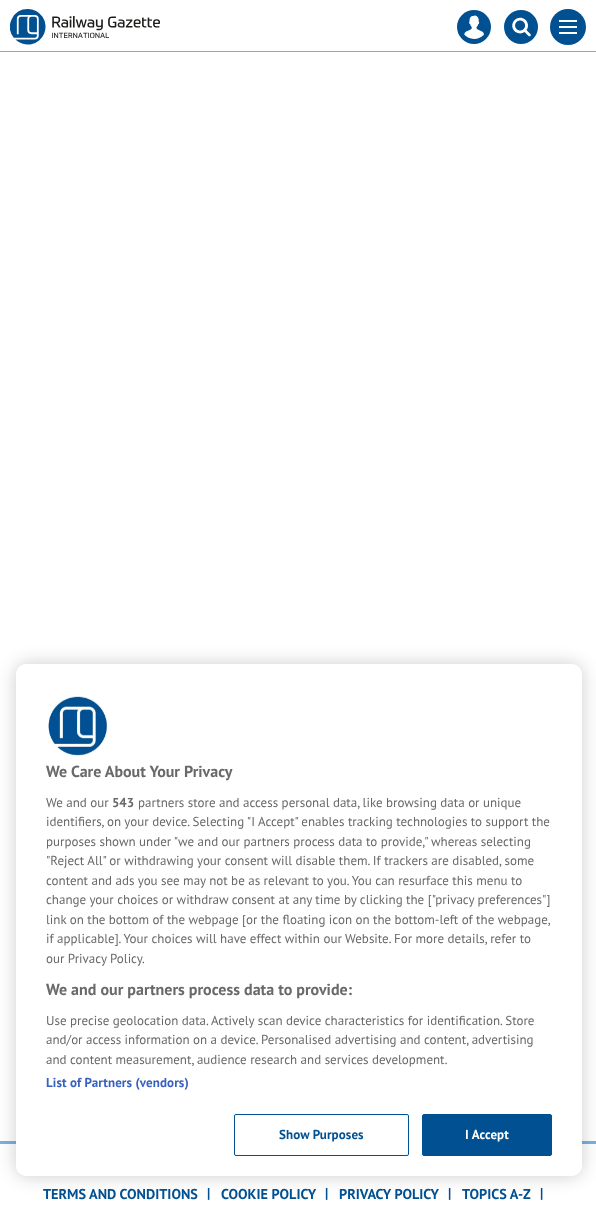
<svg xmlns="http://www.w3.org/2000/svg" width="596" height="1208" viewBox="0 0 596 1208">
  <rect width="100%" height="100%" fill="#fff"/>
  <path d="M0 1141h596v3H0z" fill="#7ab0e0"/>
  <rect x="16" y="664" width="566" height="512" rx="10" fill="#00000033" filter="blur(9px)"/>
  <rect x="16" y="664" width="566" height="512" rx="10" fill="#fff"/>
  <image x="48" y="696" width="61" height="61" href="img/1.png"/>
  <rect x="234.5" y="1114.5" width="174" height="41" rx="1.5" fill="none" stroke="#005092"/>
  <rect x="422.5" y="1114.5" width="129" height="41" rx="1.5" fill="#005092" stroke="#005092"/>
  <path d="M0 51h596v1H0z" fill="#7ab0e0"/>
  <image x="10" y="9" width="150" height="36" href="img/2.png"/>
  <image x="457" y="10" width="34" height="34" href="img/3.png"/>
  <image x="504" y="10" width="34" height="34" href="img/4.png"/>
  <circle cx="568" cy="27" r="18" fill="#005092"/>
  <image x="559" y="20" width="18" height="14" href="img/5.png"/>
  <text x="46" y="777" font-family="PT Sans" font-size="16" font-weight="bold" fill="#696969">We Care About Your Privacy</text>
  <text x="46" y="807" font-family="PT Sans" font-size="13" fill="#696969">We and our</text>
  <text x="112" y="807" font-family="PT Sans" font-size="13" font-weight="bold" fill="#696969">543</text>
  <g font-family="PT Sans" font-size="13" fill="#696969">
    <text x="138" y="807">partners store and access personal data, like browsing data or unique</text>
    <text x="46" y="826">identifiers, on your device. Selecting "I Accept" enables tracking technologies to support the</text>
    <text x="46" y="846">purposes shown under "we and our partners process data to provide," whereas selecting</text>
    <text x="46" y="865">"Reject All" or withdrawing your consent will disable them. If trackers are disabled, some</text>
    <text x="46" y="885">content and ads you see may not be as relevant to you. You can resurface this menu to</text>
    <text x="46" y="904">change your choices or withdraw consent at any time by clicking the ["privacy preferences"]</text>
    <text x="46" y="924">link on the bottom of the webpage [or the floating icon on the bottom-left of the webpage,</text>
    <text x="46" y="943">if applicable]. Your choices will have effect within our Website. For more details, refer to</text>
    <text x="46" y="963">our Privacy Policy.</text>
  </g>
  <text x="46" y="995" font-family="PT Sans" font-size="16" font-weight="bold" fill="#696969">We and our partners process data to provide:</text>
  <g font-family="PT Sans" font-size="13" fill="#696969">
    <text x="46" y="1025">Use precise geolocation data. Actively scan device characteristics for identification. Store</text>
    <text x="46" y="1044">and/or access information on a device. Personalised advertising and content, advertising</text>
    <text x="46" y="1064">and content measurement, audience research and services development.</text>
  </g>
  <text x="46" y="1087" font-family="PT Sans" font-size="13" font-weight="bold" letter-spacing="0.1" fill="#3860be">List of Partners (vendors)</text>
  <text x="279" y="1139" font-family="PT Sans" font-size="13" font-weight="bold" letter-spacing="0.1" fill="#005092">Show Purposes</text>
  <text x="465" y="1139" font-family="PT Sans" font-size="13" font-weight="bold" letter-spacing="0.1" fill="#fff">I Accept</text>
  <g font-family="PT Sans" font-size="14.25" font-weight="bold" fill="#005092">
    <text x="43" y="1199">TERMS AND CONDITIONS</text>
    <text x="207" y="1198">|</text>
    <text x="221" y="1199">COOKIE POLICY</text>
    <text x="325" y="1198">|</text>
    <text x="339" y="1199">PRIVACY POLICY</text>
    <text x="448" y="1198">|</text>
    <text x="462" y="1199">TOPICS A-Z</text>
    <text x="540" y="1198">|</text>
  </g>
</svg>
